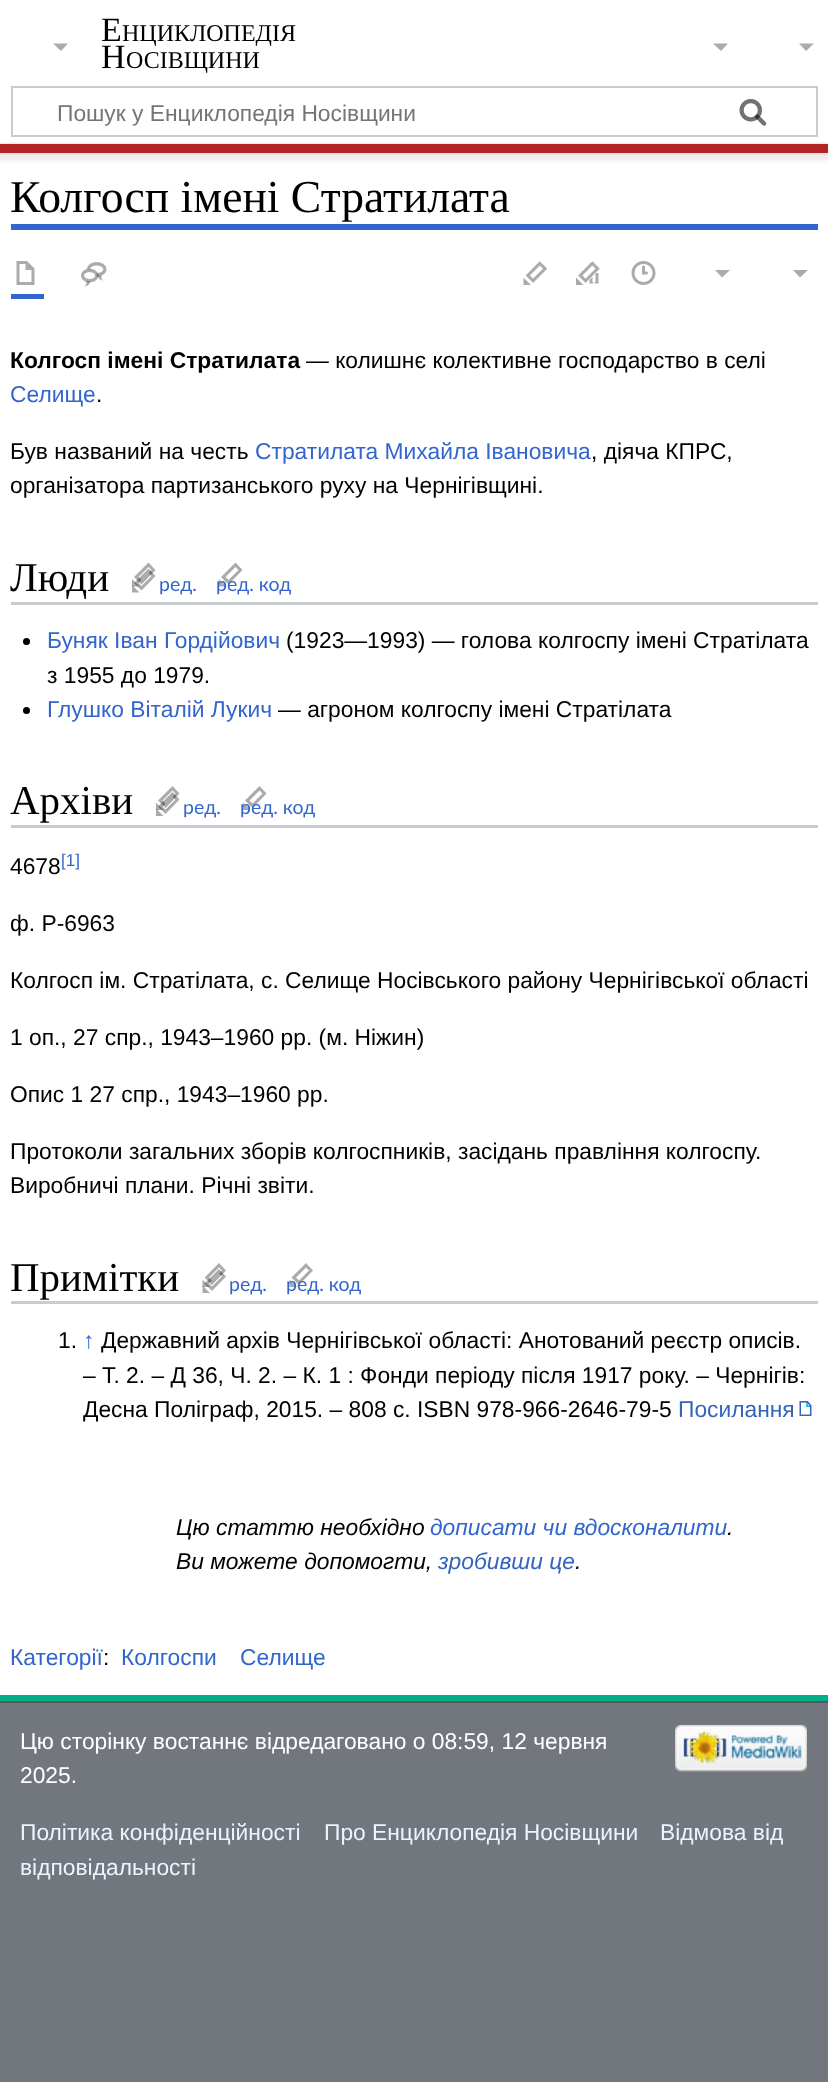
<svg xmlns="http://www.w3.org/2000/svg" width="828" height="2082" viewBox="0 0 828 2082">
  <rect width="100%" height="100%" fill="#72777d"/>
  <path d="M0 0h828v144H0z" fill="#fff"/>
  <path d="M814 43.5L806 51L799 43.5Z" fill="#ababab"/>
  <path d="M12 87h805v49H12z" fill="none" stroke="#c8ccd1" stroke-width="2"/>
  <image x="739" y="99" width="28" height="27" href="img/1.png"/>
  <image x="739" y="99" width="28" height="27" href="img/2.png"/>
  <path d="M0 153h828v1542H0z" fill="#fff"/>
  <path d="M0 144h828v9H0z" fill="#00000033" filter="blur(1.5px)"/>
  <path d="M-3 146h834v15H-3z" fill="#00000012" filter="blur(2px)"/>
  <path d="M0 144h828v9H0z" fill="#b32424"/>
  <path d="M0 1695h828v6H0z" fill="#00af89"/>
  <path d="M68 43.5L61 51L53 43.5Z" fill="#ababab"/>
  <path d="M728 43.5L721 51L713 43.5Z" fill="#ababab"/>
  <path d="M11 224h807v6H11z" fill="#36c"/>
  <path d="M11 294h33v5H11z" fill="#36c"/>
  <image x="16" y="261" width="19" height="24" href="img/3.png"/>
  <image x="81" y="262" width="26" height="25" href="img/4.png"/>
  <image x="523" y="261" width="24" height="24" href="img/5.png"/>
  <image x="576" y="261" width="24" height="24" href="img/6.png"/>
  <image x="631" y="261" width="25" height="24" href="img/7.png"/>
  <path d="M730 270L722 277.5L715 270Z" fill="#ababab"/>
  <path d="M808 270L800 277.5L793 270Z" fill="#ababab"/>
  <path d="M148.5 568.5L134 583L141.5 590.5L155.5 576ZM148.5 573L151.5 576L141.5 586L138.5 583ZM139.5 592.5H132V585Z" fill="#ababab"/>
  <path d="M148.5 562.5L134 577L141.5 584.5L155.5 570ZM148.5 567L151.5 570L141.5 580L138.5 577ZM139.5 586.5H132V579Z" fill="#00000054"/>
  <path d="M235.5 562.5L221 577L228.5 584.5L242.5 570ZM235.5 567L238.5 570L228.5 580L225.5 577ZM226.5 586.5H219V579Z" fill="#ababab"/>
  <path d="M11 602h807v3H11z" fill="#c8ccd1"/>
  <circle cx="26.5" cy="641.5" r="3.5" fill="#000"/>
  <circle cx="26.5" cy="710.5" r="3.5" fill="#000"/>
  <path d="M172.5 792L158 806.5L165.5 814L179.5 799.5ZM172.5 796.5L175.5 799.5L165.5 809.5L162.5 806.5ZM163.5 816H156V808.5Z" fill="#ababab"/>
  <path d="M172.5 786L158 800.5L165.5 808L179.5 793.5ZM172.5 790.5L175.5 793.5L165.5 803.5L162.5 800.5ZM163.5 810H156V802.5Z" fill="#00000054"/>
  <path d="M259.5 786L245 800.5L252.5 808L266.5 793.5ZM259.5 790.5L262.5 793.5L252.5 803.5L249.5 800.5ZM250.5 810H243V802.5Z" fill="#ababab"/>
  <path d="M11 825h807v3H11z" fill="#c8ccd1"/>
  <path d="M219 1269L204.5 1283.5L212 1291L226 1276.5ZM219 1273.5L222 1276.5L212 1286.5L209 1283.5ZM210 1293H202.5V1285.5Z" fill="#ababab"/>
  <path d="M219 1263L204.5 1277.5L212 1285L226 1270.5ZM219 1267.5L222 1270.5L212 1280.5L209 1277.5ZM210 1287H202.5V1279.5Z" fill="#00000054"/>
  <path d="M306 1263L291.5 1277.5L299 1285L313 1270.5ZM306 1267.5L309 1270.5L299 1280.5L296 1277.5ZM297 1287H289.5V1279.5Z" fill="#ababab"/>
  <path d="M11 1301h807v3H11z" fill="#c8ccd1"/>
  <image x="799" y="1401" width="13" height="15" href="img/8.png"/>
  <path d="M0 1701h828v2H0z" fill="#54595d"/>
  <image x="675" y="1725" width="132" height="47" href="img/9.png"/>
  <text x="101" y="41" font-family="Liberation Serif" font-size="34" fill="#000">Е</text>
  <text x="122" y="41" font-family="Liberation Serif" font-size="24" fill="#000">НЦИКЛОПЕДІЯ</text>
  <text x="101" y="68" font-family="Liberation Serif" font-size="34" fill="#000">Н</text>
  <text x="126" y="68" font-family="Liberation Serif" font-size="24" fill="#000">ОСІВЩИНИ</text>
  <text x="57" y="121" font-family="Liberation Sans" font-size="22.8" fill="#757575">Пошук у Енциклопедія Носівщини</text>
  <text x="10" y="212" font-family="Liberation Serif" font-size="45.6" fill="#000">Колгосп імені Стратилата</text>
  <text x="10" y="368" font-family="Liberation Sans" font-size="22.8" font-weight="bold" fill="#000">Колгосп імені Стратилата</text>
  <text x="306" y="368" font-family="Liberation Sans" font-size="22.8" fill="#000">— колишнє колективне господарство в селі</text>
  <text x="10" y="402" font-family="Liberation Sans" font-size="22.8" fill="#36c">Селище</text>
  <g font-family="Liberation Sans" font-size="22.8" fill="#000">
    <text x="96" y="402">.</text>
    <text x="10" y="459">Був названий на честь</text>
  </g>
  <text x="255" y="459" font-family="Liberation Sans" font-size="22.8" fill="#36c">Стратилата Михайла Івановича</text>
  <g font-family="Liberation Sans" font-size="22.8" fill="#000">
    <text x="591" y="459">, діяча КПРС,</text>
    <text x="10" y="493">організатора партизанського руху на Чернігівщині.</text>
  </g>
  <text x="10" y="591" font-family="Liberation Serif" font-size="41" fill="#000">Люди</text>
  <g font-family="Lato" font-size="19.5" fill="#36c">
    <text x="159" y="591">ред.</text>
    <text x="216" y="591">ред. код</text>
  </g>
  <text x="47" y="648" font-family="Liberation Sans" font-size="22.8" fill="#36c">Буняк Іван Гордійович</text>
  <g font-family="Liberation Sans" font-size="22.8" fill="#000">
    <text x="286" y="648">(1923—1993) — голова колгоспу імені Стратілата</text>
    <text x="47" y="683">з 1955 до 1979.</text>
  </g>
  <text x="47" y="717" font-family="Liberation Sans" font-size="22.8" fill="#36c">Глушко Віталій Лукич</text>
  <text x="278" y="717" font-family="Liberation Sans" font-size="22.8" fill="#000">— агроном колгоспу імені Стратілата</text>
  <text x="10" y="814" font-family="Liberation Serif" font-size="41" fill="#000">Архіви</text>
  <g font-family="Lato" font-size="19.5" fill="#36c">
    <text x="183" y="814">ред.</text>
    <text x="240" y="814">ред. код</text>
  </g>
  <text x="10" y="874" font-family="Liberation Sans" font-size="22.8" fill="#000">4678</text>
  <text x="61" y="866" font-family="Liberation Sans" font-size="17" fill="#36c">[1]</text>
  <g font-family="Liberation Sans" font-size="22.8" fill="#000">
    <text x="10" y="931">ф. Р-6963</text>
    <text x="10" y="988">Колгосп ім. Стратілата, с. Селище Носівського району Чернігівської області</text>
    <text x="10" y="1045">1 оп., 27 спр., 1943–1960 рр. (м. Ніжин)</text>
    <text x="10" y="1102">Опис 1 27 спр., 1943–1960 рр.</text>
    <text x="10" y="1159">Протоколи загальних зборів колгоспників, засідань правління колгоспу.</text>
    <text x="10" y="1193">Виробничі плани. Річні звіти.</text>
  </g>
  <text x="10" y="1291" font-family="Liberation Serif" font-size="41" fill="#000">Примітки</text>
  <g font-family="Lato" font-size="19.5" fill="#36c">
    <text x="229" y="1291">ред.</text>
    <text x="286" y="1291">ред. код</text>
  </g>
  <text x="58" y="1348" font-family="Liberation Sans" font-size="22.8" fill="#000">1.</text>
  <text x="83" y="1348" font-family="Liberation Sans" font-size="22.8" fill="#36c">↑</text>
  <g font-family="Liberation Sans" font-size="22.8" fill="#000">
    <text x="101" y="1348">Державний архів Чернігівської області: Анотований реєстр описів.</text>
    <text x="83" y="1383">– Т. 2. – Д 36, Ч. 2. – К. 1 : Фонди періоду після 1917 року. – Чернігів:</text>
    <text x="83" y="1417">Десна Поліграф, 2015. – 808 с. ISBN 978-966-2646-79-5</text>
  </g>
  <text x="678" y="1417" font-family="Liberation Sans" font-size="22.8" fill="#36b">Посилання</text>
  <text x="176" y="1535" font-family="Liberation Sans" font-size="22.8" font-style="italic" fill="#000">Цю статтю необхідно</text>
  <text x="430" y="1535" font-family="Liberation Sans" font-size="22.8" font-style="italic" fill="#36c">дописати чи вдосконалити</text>
  <g font-family="Liberation Sans" font-size="22.8" font-style="italic" fill="#000">
    <text x="727" y="1535">.</text>
    <text x="176" y="1569">Ви можете допомогти,</text>
  </g>
  <text x="438" y="1569" font-family="Liberation Sans" font-size="22.8" font-style="italic" fill="#36b">зробивши це</text>
  <text x="575" y="1569" font-family="Liberation Sans" font-size="22.8" font-style="italic" fill="#000">.</text>
  <text x="10" y="1665" font-family="Liberation Sans" font-size="22.8" fill="#36c">Категорії</text>
  <text x="103" y="1665" font-family="Liberation Sans" font-size="22.8" fill="#000">:</text>
  <g font-family="Liberation Sans" font-size="22.8" fill="#36c">
    <text x="121" y="1665">Колгоспи</text>
    <text x="240" y="1665">Селище</text>
  </g>
  <g font-family="Liberation Sans" font-size="22.8" fill="#fff">
    <text x="20" y="1749">Цю сторінку востаннє відредаговано о 08:59, 12 червня</text>
    <text x="20" y="1783">2025.</text>
  </g>
  <g font-family="Liberation Sans" font-size="22.8" fill="#eaf3ff">
    <text x="20" y="1840">Політика конфіденційності</text>
    <text x="324" y="1840">Про Енциклопедія Носівщини</text>
    <text x="660" y="1840">Відмова від</text>
    <text x="20" y="1875">відповідальності</text>
  </g>
</svg>
